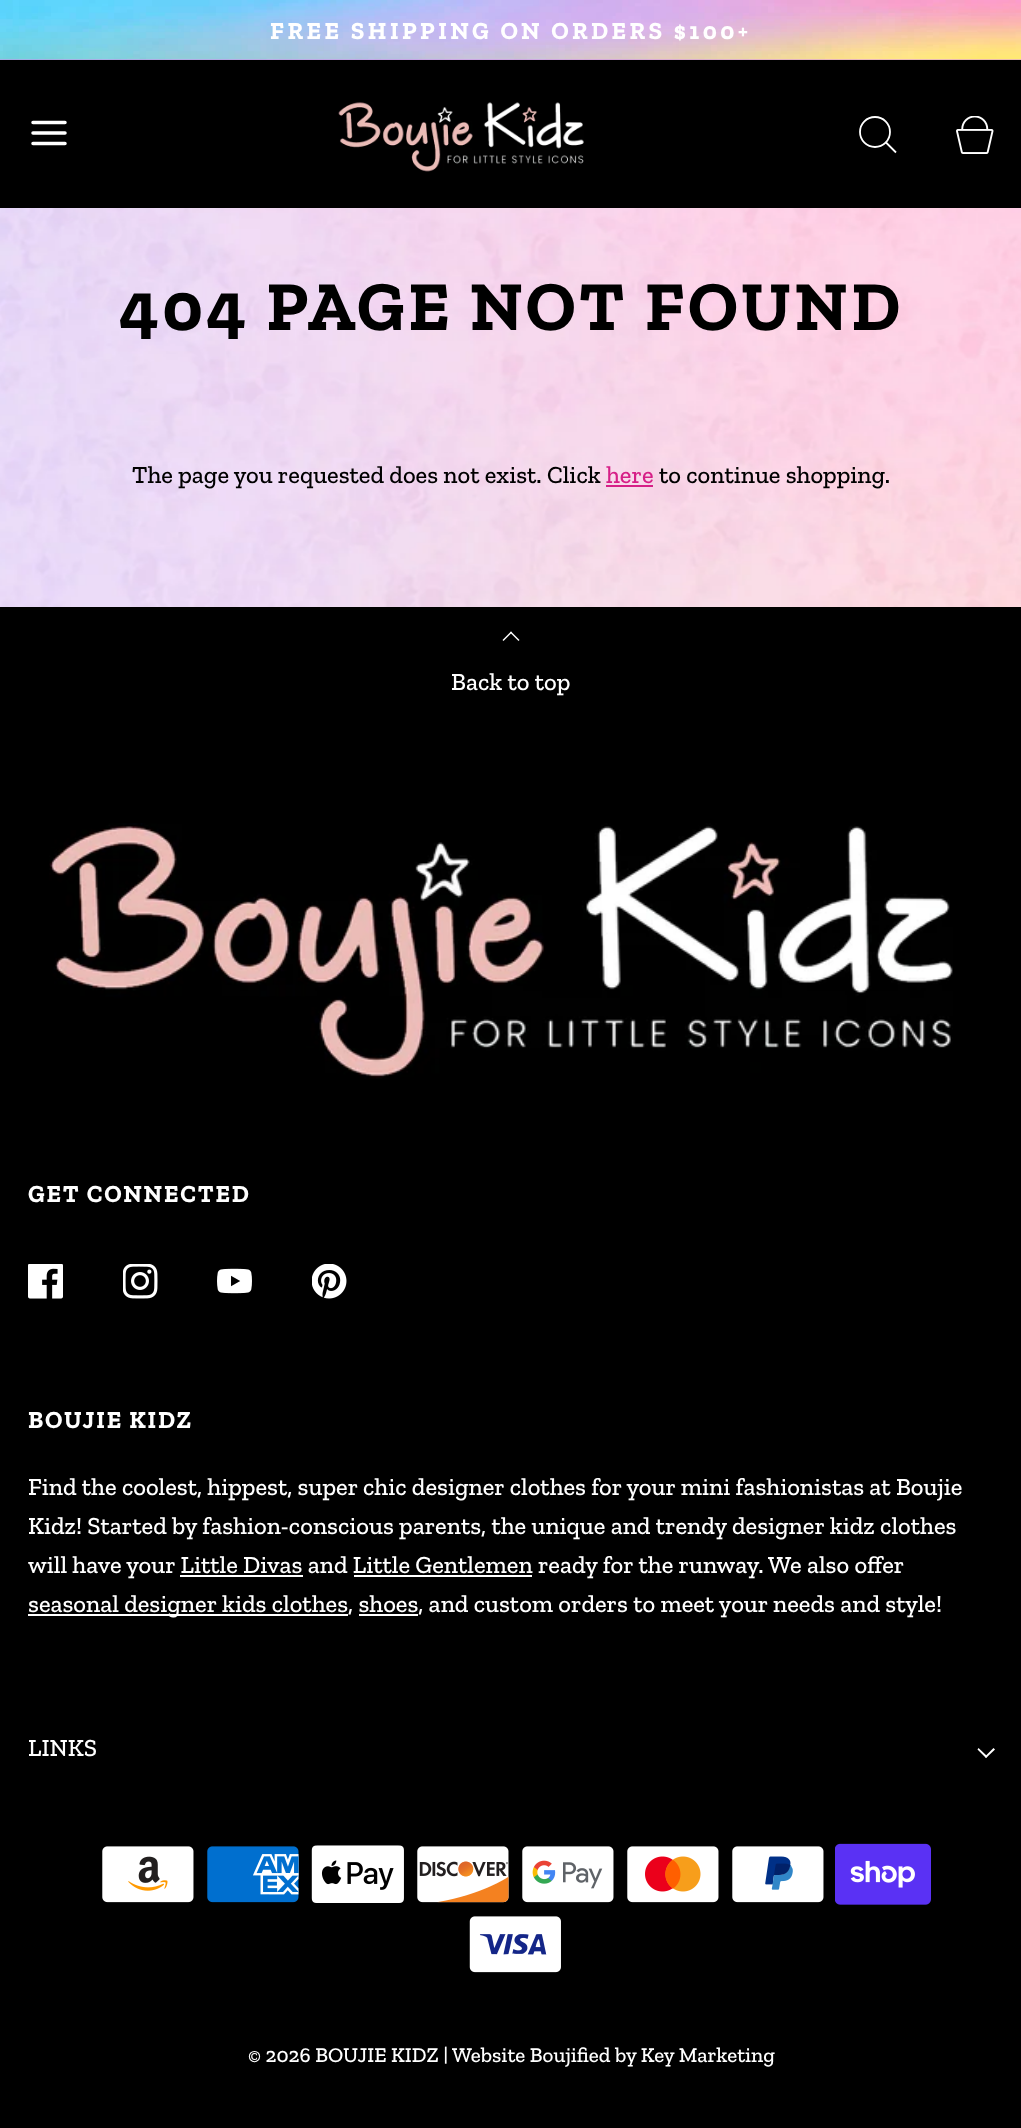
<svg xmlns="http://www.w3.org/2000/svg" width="1021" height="2128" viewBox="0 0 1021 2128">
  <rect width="100%" height="100%" fill="#fff"/>
  <image x="0" y="208" width="1021" height="399" href="img/1.png"/>
  <path d="M0 59h1021v1H0z" fill="#d38dee"/>
  <image x="0" y="0" width="1021" height="60" href="img/2.png"/>
  <path d="M0 60h1021v148H0z" fill="#000"/>
  <path d="M33 133H65M33 122.5H65M33 143.5H65" fill="none" stroke="#fff" stroke-width="3.5" stroke-linecap="round" stroke-linejoin="round"/>
  <image x="338" y="102" width="246" height="70" href="img/3.png"/>
  <circle cx="875" cy="132" r="15" fill="none" stroke="#fff" stroke-width="1.8"/>
  <path d="M885.5 142L896 152.5" fill="none" stroke="#fff" stroke-width="1.8"/>
  <image x="956" y="116" width="38" height="38" href="img/4.png"/>
  <path d="M606 485h47v2H606z" fill="#d61f87"/>
  <path d="M0 607h1021v1521H0z" fill="#000"/>
  <path d="M503.5 641L502.5 640L511 631.5L512 632.5Z" fill="#fff"/>
  <path d="M518.5 641L510 632.5L511 631.5L519.5 640Z" fill="#fff"/>
  <image x="49" y="823" width="904" height="256" href="img/5.png"/>
  <image x="28" y="1264" width="35" height="35" href="img/6.png"/>
  <image x="123" y="1264" width="35" height="35" href="img/7.png"/>
  <image x="217" y="1268" width="35" height="26" href="img/8.png"/>
  <image x="312" y="1264" width="35" height="35" href="img/9.png"/>
  <path d="M180 1575h123v2H180z" fill="#fff"/>
  <path d="M354 1575h178v2H354z" fill="#fff"/>
  <path d="M28 1614h320v2H28z" fill="#fff"/>
  <path d="M359 1614h59v2H359z" fill="#fff"/>
  <path d="M993.5 1748L995 1749.5L986 1758L985 1756.5Z" fill="#fff"/>
  <path d="M978.5 1748L987.5 1756.5L986 1758L977.5 1749.5Z" fill="#fff"/>
  <image x="102" y="1846" width="92" height="57" href="img/10.png"/>
  <image x="207" y="1846" width="92" height="57" href="img/11.png"/>
  <image x="311" y="1845" width="93" height="58" href="img/12.png"/>
  <image x="417" y="1846" width="92" height="57" href="img/13.png"/>
  <image x="522" y="1846" width="92" height="57" href="img/14.png"/>
  <image x="627" y="1846" width="92" height="57" href="img/15.png"/>
  <image x="732" y="1846" width="92" height="57" href="img/16.png"/>
  <image x="835" y="1843" width="96" height="62" href="img/17.png"/>
  <image x="469" y="1916" width="92" height="57" href="img/18.png"/>
  <text x="270" y="39" font-family="Zilla Slab" font-size="24.5" font-weight="bold" letter-spacing="3.5" fill="#fff">FREE SHIPPING ON ORDERS $100+</text>
  <text x="119" y="330" font-family="Zilla Slab" font-size="70" font-weight="bold" letter-spacing="3.5" fill="#000">404 PAGE NOT FOUND</text>
  <text x="132" y="483" font-family="Zilla Slab" font-size="24.5" font-weight="500" fill="#000">The page you requested does not exist. Click</text>
  <text x="606" y="483" font-family="Zilla Slab" font-size="24.5" font-weight="500" fill="#d61f87">here</text>
  <text x="659" y="483" font-family="Zilla Slab" font-size="24.5" font-weight="500" fill="#000">to continue shopping.</text>
  <text x="451" y="690" font-family="Zilla Slab" font-size="24.5" font-weight="500" fill="#fff">Back to top</text>
  <g font-family="Zilla Slab" font-size="24.5" font-weight="bold" letter-spacing="1.75" fill="#fff">
    <text x="28" y="1202">GET CONNECTED</text>
    <text x="28" y="1428">BOUJIE KIDZ</text>
  </g>
  <g font-family="Zilla Slab" font-size="24.5" font-weight="500" fill="#fff">
    <text x="28" y="1495">Find the coolest, hippest, super chic designer clothes for your mini fashionistas at Boujie</text>
    <text x="28" y="1534">Kidz! Started by fashion-conscious parents, the unique and trendy designer kidz clothes</text>
    <text x="28" y="1573">will have your Little Divas and Little Gentlemen ready for the runway. We also offer</text>
    <text x="28" y="1612">seasonal designer kids clothes, shoes, and custom orders to meet your needs and style!</text>
    <text x="28" y="1756">LINKS</text>
  </g>
  <g font-family="Zilla Slab" font-size="21" font-weight="500" fill="#fff">
    <text x="248" y="2062">© 2026 BOUJIE KIDZ |</text>
    <text x="452" y="2062">Website Boujified by Key Marketing</text>
  </g>
</svg>
